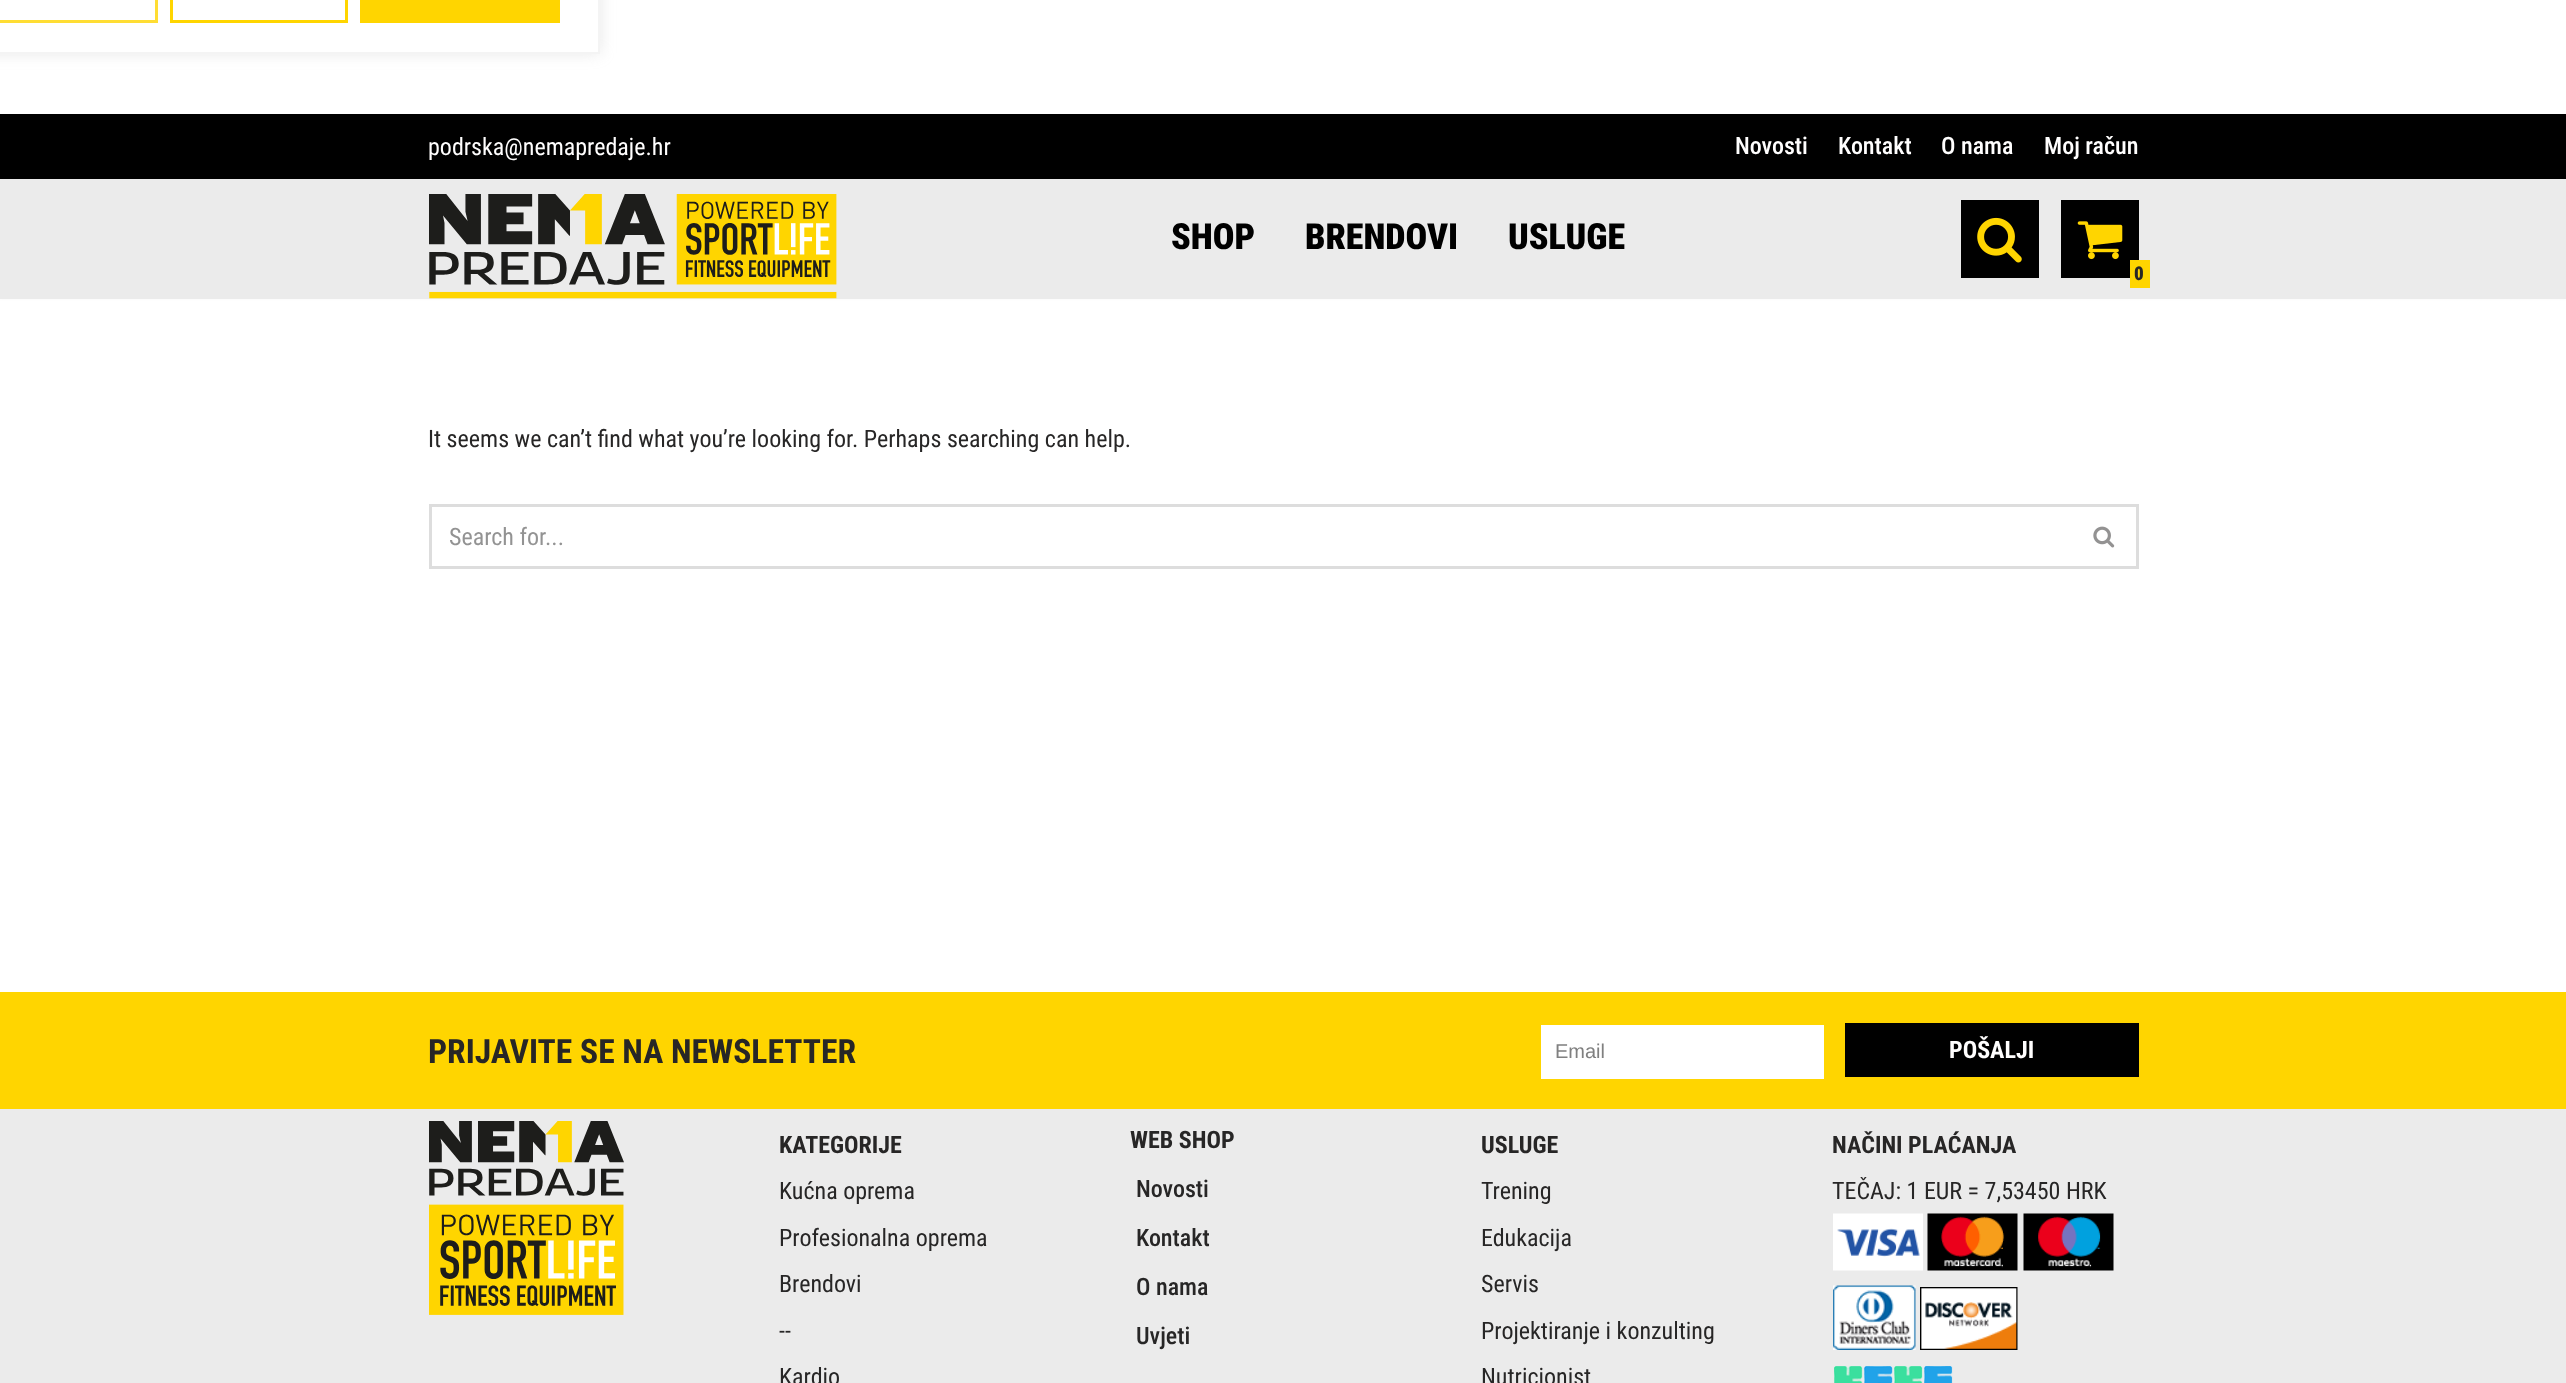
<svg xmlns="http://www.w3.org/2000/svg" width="2566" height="1383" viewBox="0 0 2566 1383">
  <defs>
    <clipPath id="clip1"><path d="M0 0H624V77H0ZM-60-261H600V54H-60Z" clip-rule="evenodd"/></clipPath>
  </defs>
  <rect width="100%" height="100%" fill="#fff"/>
  <g clip-path="url(#clip1)">
    <path d="M-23 -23h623v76H-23z" fill="#acabab4d" filter="blur(7.5px)"/>
  </g>
  <path d="M-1 -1h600v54H-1z" fill="none" stroke="#f4f4f4" stroke-width="2"/>
  <path d="M-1.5 -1.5h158v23H-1.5z" fill="none" stroke="#fd3" stroke-width="3"/>
  <path d="M171.5 -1.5h175v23H171.5z" fill="none" stroke="#ffd500" stroke-width="3"/>
  <path d="M360 0h200v23H360z" fill="#ffd500"/>
  <path d="M0 114h2566v65H0z" fill="#000"/>
  <path d="M0 177h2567v120H0z" fill="#0000001a" filter="blur(2px)"/>
  <path d="M0 179h2566v120H0z" fill="#ebebeb"/>
  <image x="429" y="194" width="408" height="105" href="img/1.png"/>
  <path d="M1961 200h78v78H1961z" fill="#000"/>
  <image x="1977" y="217" width="45" height="46" href="img/2.png"/>
  <path d="M2061 200h78v78H2061z" fill="#000"/>
  <image x="2077" y="221" width="46" height="39" href="img/3.png"/>
  <path d="M2130 260h20v28H2130z" fill="#ffd500"/>
  <path d="M429 504h1710v3H429z" fill="#ddd"/>
  <path d="M429 566h1643v3H429z" fill="#ddd"/>
  <path d="M429 504h3v65H429z" fill="#ddd"/>
  <path d="M2136 504h3v65H2136z" fill="#ddd"/>
  <path d="M2072 566h67v3H2072z" fill="#ddd"/>
  <image x="2093" y="526" width="22" height="22" href="img/4.png"/>
  <path d="M0 992h2566v117H0z" fill="#ffd500"/>
  <path d="M1541 1025h283v54H1541z" fill="#fff"/>
  <path d="M1845 1023h294v54H1845z" fill="#000"/>
  <path d="M0 1109h2566v274H0z" fill="#ebebeb"/>
  <image x="429" y="1121" width="195" height="194" href="img/5.png"/>
  <image x="1833" y="1213" width="90" height="58" href="img/6.png"/>
  <image x="1927" y="1213" width="91" height="58" href="img/7.png"/>
  <image x="2023" y="1213" width="91" height="58" href="img/8.png"/>
  <image x="1833" y="1285" width="83" height="65" href="img/9.png"/>
  <image x="1920" y="1287" width="98" height="63" href="img/10.png"/>
  <image x="1834" y="1366" width="119" height="17" href="img/11.png"/>
  <text x="428" y="155" font-family="Roboto Condensed" font-size="24" fill="#fffefe">podrska@nemapredaje.hr</text>
  <g font-family="Roboto Condensed" font-size="24" font-weight="500" fill="#fffefe">
    <text x="1735" y="154">Novosti</text>
    <text x="1838" y="154">Kontakt</text>
    <text x="1941" y="154">O nama</text>
    <text x="2044" y="154">Moj račun</text>
  </g>
  <g font-family="Roboto Condensed" font-size="36" font-weight="900" fill="#000">
    <text x="1171" y="249">SHOP</text>
    <text x="1305" y="249">BRENDOVI</text>
    <text x="1508" y="249">USLUGE</text>
  </g>
  <text x="2134" y="280" font-family="Roboto Condensed" font-size="19" font-weight="900" fill="#272626">0</text>
  <text x="428" y="447" font-family="Roboto Condensed" font-size="24" fill="#272626">It seems we can’t find what you’re looking for. Perhaps searching can help.</text>
  <text x="449" y="545" font-family="Roboto Condensed" font-size="24" fill="#939393">Search for...</text>
  <text x="428" y="1063" font-family="Roboto Condensed" font-size="33.6" font-weight="bold" fill="#272626">PRIJAVITE SE NA NEWSLETTER</text>
  <text x="1555" y="1058" font-family="Liberation Sans" font-size="20" fill="#808080">Email</text>
  <text x="1949" y="1058" font-family="Roboto Condensed" font-size="24" font-weight="bold" fill="#fffefe">POŠALJI</text>
  <text x="779" y="1153" font-family="Roboto Condensed" font-size="24" font-weight="bold" fill="#272626">KATEGORIJE</text>
  <g font-family="Roboto Condensed" font-size="24" fill="#272626">
    <text x="779" y="1199">Kućna oprema</text>
    <text x="779" y="1246">Profesionalna oprema</text>
    <text x="779" y="1292">Brendovi</text>
    <text x="779" y="1339">--</text>
    <text x="779" y="1385">Kardio</text>
  </g>
  <text x="1130" y="1148" font-family="Roboto Condensed" font-size="24" font-weight="bold" fill="#272626">WEB SHOP</text>
  <g font-family="Roboto Condensed" font-size="24" font-weight="500" fill="#272626">
    <text x="1136" y="1197">Novosti</text>
    <text x="1136" y="1246">Kontakt</text>
    <text x="1136" y="1295">O nama</text>
    <text x="1136" y="1344">Uvjeti</text>
  </g>
  <text x="1481" y="1153" font-family="Roboto Condensed" font-size="24" font-weight="bold" fill="#272626">USLUGE</text>
  <g font-family="Roboto Condensed" font-size="24" fill="#272626">
    <text x="1481" y="1199">Trening</text>
    <text x="1481" y="1246">Edukacija</text>
    <text x="1481" y="1292">Servis</text>
    <text x="1481" y="1339">Projektiranje i konzulting</text>
    <text x="1481" y="1385">Nutricionist</text>
  </g>
  <text x="1832" y="1153" font-family="Roboto Condensed" font-size="24" font-weight="bold" fill="#272626">NAČINI PLAĆANJA</text>
  <text x="1832" y="1199" font-family="Roboto Condensed" font-size="24" fill="#272626">TEČAJ: 1 EUR = 7,53450 HRK</text>
</svg>
